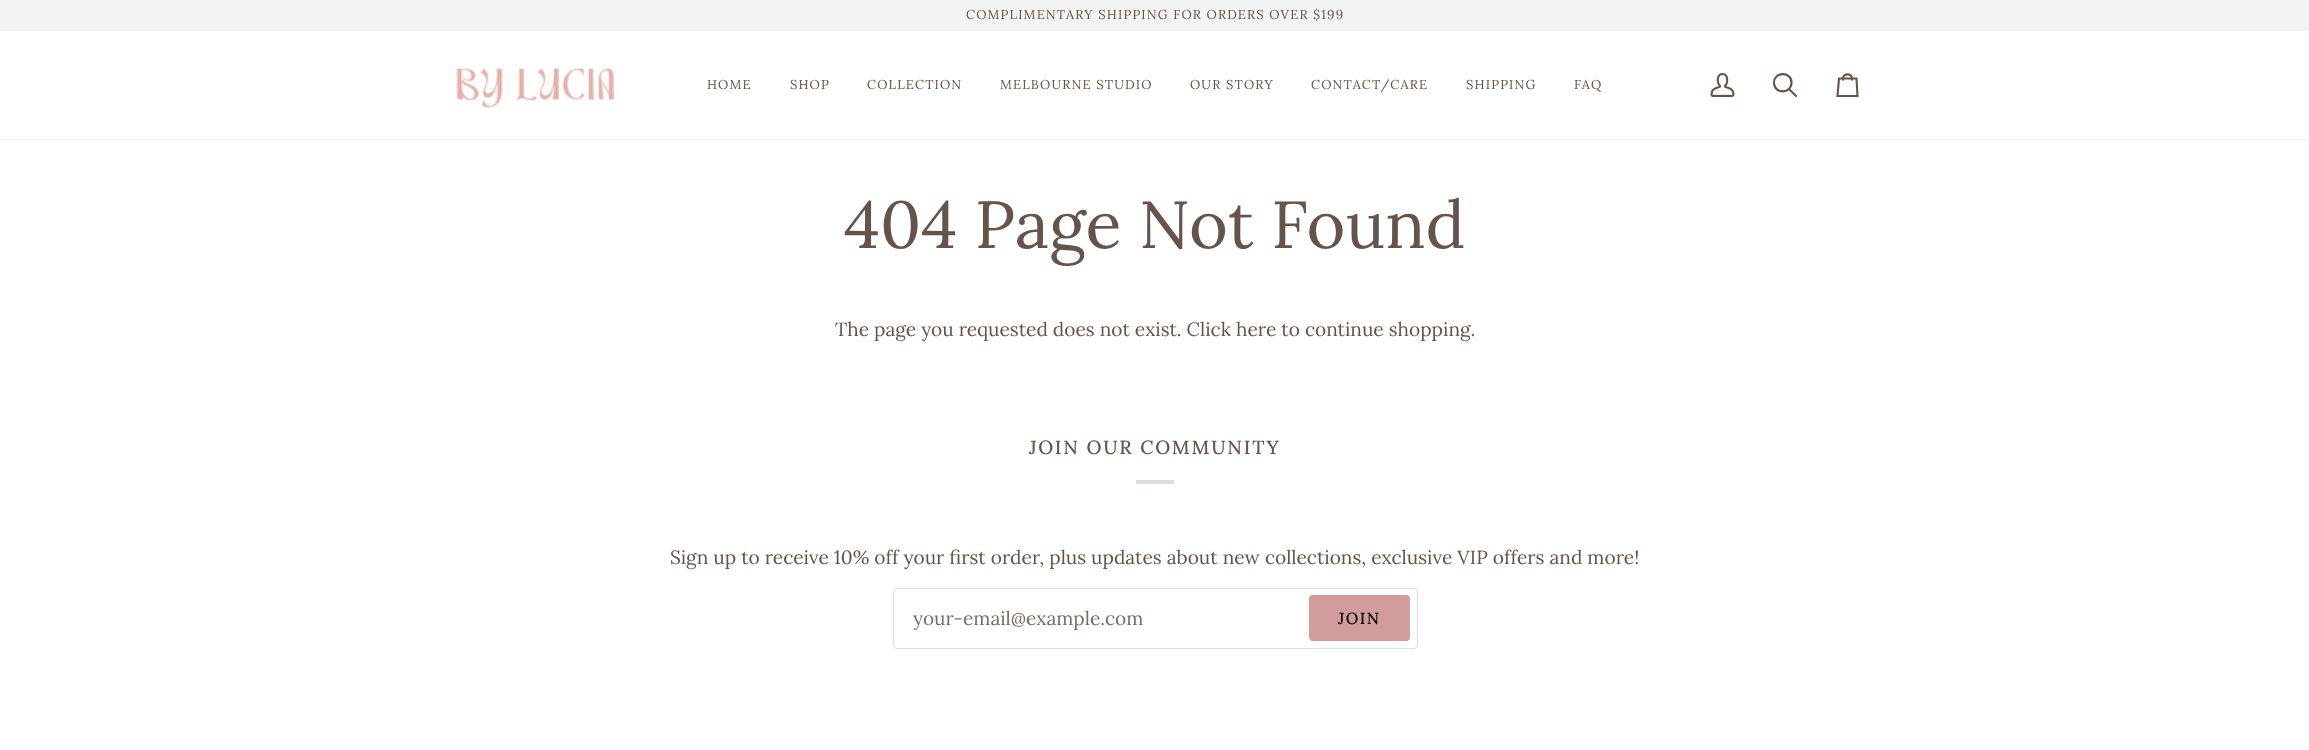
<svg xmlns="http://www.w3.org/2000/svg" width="2309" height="750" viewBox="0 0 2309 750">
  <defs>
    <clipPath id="clip1"><path d="M913 606h383v24H913z"/></clipPath>
  </defs>
  <rect width="100%" height="100%" fill="#fff"/>
  <path d="M0 0h2309v31H0z" fill="#f3f3f3"/>
  <path d="M0 139h2309v1H0z" fill="#f3f3f3"/>
  <image x="456" y="67" width="160" height="42" href="img/1.png"/>
  <image x="1710" y="73" width="25" height="24" href="img/2.png"/>
  <path d="M1791.5 82.5C1791.5 94 1774.5 94.5 1774 83C1773.5 71.5 1791.5 71 1791.5 82.5ZM1796 96L1789 89Z" fill="none" stroke="#645449" stroke-width="2.1" stroke-linecap="round" stroke-linejoin="round"/>
  <path d="M1852 80.5V78.5H1856.5L1857.5 96H1837.5L1839 78.5H1843C1843 73 1852 73 1852 78.5H1843V80.5" fill="none" stroke="#645449" stroke-width="2.1"/>
  <path d="M1136 480h38v4H1136z" fill="#e0dddb"/>
  <rect x="893.5" y="588.5" width="524" height="60" rx="3.5" fill="none" stroke="#e0dddb"/>
  <rect x="1309" y="595" width="101" height="46" rx="4" fill="#d19c9b"/>
  <g font-family="Lora" font-size="12.95" letter-spacing="1.15" fill="#645449">
    <text x="966" y="19">COMPLIMENTARY SHIPPING FOR ORDERS OVER $199</text>
    <text x="707" y="89">HOME</text>
    <text x="790" y="89">SHOP</text>
    <text x="867" y="89">COLLECTION</text>
    <text x="1000" y="89">MELBOURNE STUDIO</text>
    <text x="1190" y="89">OUR STORY</text>
    <text x="1311" y="89">CONTACT/CARE</text>
    <text x="1466" y="89">SHIPPING</text>
    <text x="1574" y="89">FAQ</text>
  </g>
  <text x="844" y="248" font-family="Lora" font-size="66.5" fill="#645449">404 Page Not Found</text>
  <text x="835" y="336" font-family="Lora" font-size="19.12" fill="#645449">The page you requested does not exist. Click here to continue shopping.</text>
  <text x="1029" y="454" font-family="Lora" font-size="19.12" font-weight="500" letter-spacing="1.75" fill="#645449">JOIN OUR COMMUNITY</text>
  <text x="670" y="564" font-family="Lora" font-size="19.12" fill="#645449">Sign up to receive 10% off your first order, plus updates about new collections, exclusive VIP offers and more!</text>
  <g clip-path="url(#clip1)">
    <text x="913" y="625" font-family="Lora" font-size="19.12" fill="#776d66">your-email@example.com</text>
  </g>
  <text x="1338" y="624" font-family="Lora" font-size="16" font-weight="500" letter-spacing="1.5" fill="#000">JOIN</text>
</svg>
